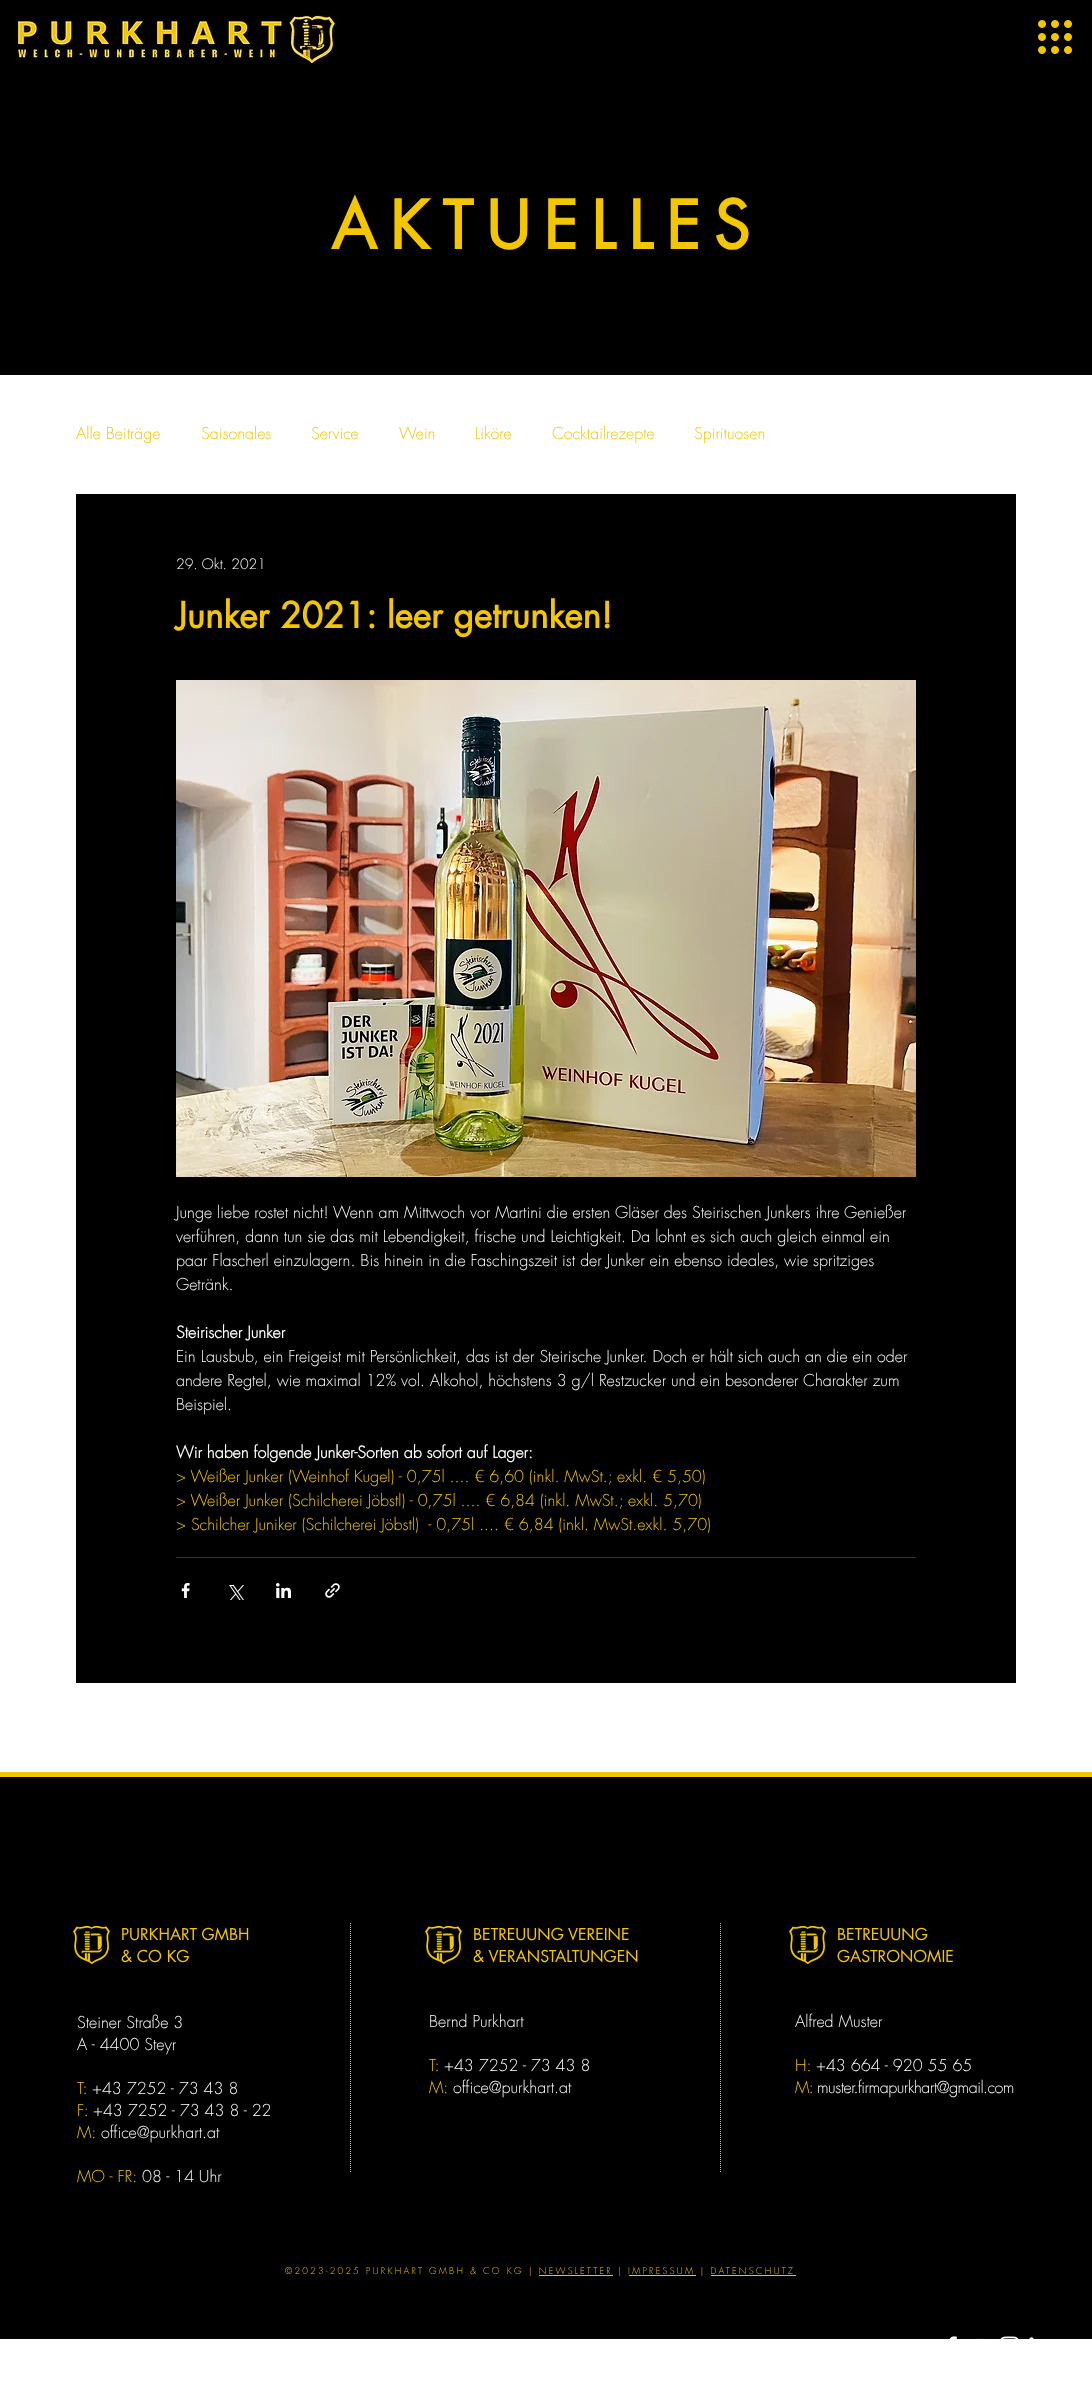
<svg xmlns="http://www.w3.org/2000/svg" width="1092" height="2400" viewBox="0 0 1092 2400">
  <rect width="100%" height="100%" fill="#fff"/>
  <path d="M0 0h1092v375H0z" fill="#000"/>
  <image x="13" y="11" width="328" height="54" href="img/1.png"/>
  <image x="1038" y="20" width="34" height="34" href="img/2.png"/>
  <path d="M76 494h940v1189H76z" fill="#000"/>
  <image x="176" y="680" width="740" height="497" href="img/3.png"/>
  <path d="M176 1557h740v1H176z" fill="#333"/>
  <image x="181" y="1583" width="9" height="15" href="img/4.png"/>
  <image x="229" y="1585" width="15" height="15" href="img/5.png"/>
  <image x="276" y="1583" width="15" height="15" href="img/6.png"/>
  <image x="325" y="1583" width="15" height="15" href="img/7.png"/>
  <path d="M0 1772h1092v5H0z" fill="#f4c600"/>
  <path d="M0 1777h1092v562H0z" fill="#000"/>
  <image x="73" y="1926" width="37" height="38" href="img/8.png"/>
  <path d="M350.5 1923V2172" fill="none" stroke="#f4c600" stroke-dasharray="1 1"/>
  <image x="425" y="1926" width="37" height="38" href="img/8.png"/>
  <path d="M720.5 1923V2172" fill="none" stroke="#f4c600" stroke-dasharray="1 1"/>
  <image x="789" y="1926" width="37" height="38" href="img/8.png"/>
  <path d="M539 2275h74v1H539z" fill="#f4c600"/>
  <path d="M629 2275h67v1H629z" fill="#f4c600"/>
  <path d="M711 2275h85v1H711z" fill="#f4c600"/>
  <image x="949" y="2336" width="8" height="3" href="img/9.png"/>
  <image x="976" y="2338" width="9" height="1" href="img/10.png"/>
  <image x="1000" y="2336" width="19" height="3" href="img/11.png"/>
  <image x="1029" y="2337" width="5" height="2" href="img/12.png"/>
  <text x="331" y="249" font-family="futura" font-size="65" font-weight="bold" letter-spacing="13" fill="#f4c600">AKTUELLES</text>
  <g font-family="futura" font-size="16" font-weight="300" fill="#f4c600">
    <text x="76" y="439">Alle Beiträge</text>
    <text x="201" y="439">Saisonales</text>
    <text x="311" y="439">Service</text>
    <text x="399" y="439">Wein</text>
    <text x="475" y="439">Liköre</text>
    <text x="552" y="439">Cocktailrezepte</text>
    <text x="694" y="439">Spirituosen</text>
  </g>
  <text x="176" y="569" font-family="futura" font-size="14" font-weight="300" fill="#fff">29. Okt. 2021</text>
  <text x="176" y="628" font-family="futura" font-size="35" font-weight="bold" fill="#f4c600">Junker 2021: leer getrunken!</text>
  <g font-family="futura" font-size="16" font-weight="300" fill="#fff">
    <text x="176" y="1218">Junge liebe rostet nicht! Wenn am Mittwoch vor Martini die ersten Gläser des Steirischen Junkers ihre Genießer</text>
    <text x="176" y="1242">verführen, dann tun sie das mit Lebendigkeit, frische und Leichtigkeit. Da lohnt es sich auch gleich einmal ein</text>
    <text x="176" y="1266">paar Flascherl einzulagern. Bis hinein in die Faschingszeit ist der Junker ein ebenso ideales, wie spritziges</text>
    <text x="176" y="1290">Getränk.</text>
  </g>
  <text x="176" y="1338" font-family="'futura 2'" font-size="16" font-weight="bold" fill="#fff">Steirischer Junker</text>
  <g font-family="futura" font-size="16" font-weight="300" fill="#fff">
    <text x="176" y="1362">Ein Lausbub, ein Freigeist mit Persönlichkeit, das ist der Steirische Junker. Doch er hält sich auch an die ein oder</text>
    <text x="176" y="1386">andere Regtel, wie maximal 12% vol. Alkohol, höchstens 3 g/l Restzucker und ein besonderer Charakter zum</text>
    <text x="176" y="1410">Beispiel.</text>
  </g>
  <text x="176" y="1458" font-family="'futura 2'" font-size="16" font-weight="bold" fill="#fff">Wir haben folgende Junker-Sorten ab sofort auf Lager:</text>
  <g font-family="futura" font-size="16" font-weight="300" fill="#f4c600">
    <text x="176" y="1482">&gt; Weißer Junker (Weinhof Kugel) - 0,75l .... € 6,60 (inkl. MwSt.; exkl. € 5,50)</text>
    <text x="176" y="1506">&gt; Weißer Junker (Schilcherei Jöbstl) - 0,75l .... € 6,84 (inkl. MwSt.; exkl. 5,70)</text>
    <text x="176" y="1530" xml:space="preserve">&gt; Schilcher Juniker (Schilcherei Jöbstl)  - 0,75l .... € 6,84 (inkl. MwSt.exkl. 5,70)</text>
  </g>
  <g font-family="futura" font-size="16" fill="#f4c600">
    <text x="121" y="1940">PURKHART GMBH</text>
    <text x="121" y="1962">&amp; CO KG</text>
    <text x="473" y="1940">BETREUUNG</text>
    <text x="568" y="1940">VEREINE</text>
    <text x="473" y="1962">&amp; VERANSTALTUNGEN</text>
    <text x="837" y="1940">BETREUUNG</text>
    <text x="837" y="1962">GASTRONOMIE</text>
  </g>
  <g font-family="futura" font-size="16" font-weight="300" fill="#fff">
    <text x="77" y="2028">Steiner Straße 3</text>
    <text x="77" y="2050">A - 4400 Steyr</text>
  </g>
  <text x="77" y="2094" font-family="futura" font-size="16" font-weight="300" fill="#f4c600">T:</text>
  <text x="92" y="2094" font-family="futura" font-size="16" font-weight="300" fill="#fff">+43 7252 - 73 43 8</text>
  <text x="77" y="2116" font-family="futura" font-size="16" font-weight="300" fill="#f4c600">F:</text>
  <text x="93" y="2116" font-family="futura" font-size="16" font-weight="300" fill="#fff">+43 7252 - 73 43 8 - 22</text>
  <text x="77" y="2138" font-family="futura" font-size="16" font-weight="300" fill="#f4c600">M:</text>
  <text x="101" y="2138" font-family="futura" font-size="16" font-weight="300" fill="#fff">office@purkhart.at</text>
  <text x="77" y="2182" font-family="futura" font-size="16" font-weight="300" fill="#f4c600">MO - FR:</text>
  <g font-family="futura" font-size="16" font-weight="300" fill="#fff">
    <text x="142" y="2182">08 - 14 Uhr</text>
    <text x="429" y="2027">Bernd Purkhart</text>
  </g>
  <text x="429" y="2071" font-family="futura" font-size="16" font-weight="300" fill="#f4c600">T:</text>
  <text x="444" y="2071" font-family="futura" font-size="16" font-weight="300" fill="#fff">+43 7252 - 73 43 8</text>
  <text x="429" y="2093" font-family="futura" font-size="16" font-weight="300" fill="#f4c600">M:</text>
  <g font-family="futura" font-size="16" font-weight="300" fill="#fff">
    <text x="453" y="2093">office@purkhart.at</text>
    <text x="795" y="2027">Alfred Muster</text>
  </g>
  <text x="795" y="2071" font-family="futura" font-size="16" font-weight="300" fill="#f4c600">H:</text>
  <text x="816" y="2071" font-family="futura" font-size="16" font-weight="300" fill="#fff">+43 664 - 920 55 65</text>
  <text x="795" y="2093" font-family="futura" font-size="16" font-weight="300" letter-spacing="-0.5" fill="#f4c600">M:</text>
  <text x="817" y="2093" font-family="futura" font-size="16" font-weight="300" letter-spacing="-0.5" fill="#fff">muster.firmapurkhart@gmail.com</text>
  <text x="285" y="2274" font-family="futura" font-size="9" font-weight="300" letter-spacing="2.25" fill="#f4c600">©2023-2025 PURKHART GMBH &amp; CO KG | NEWSLETTER | IMPRESSUM | DATENSCHUTZ</text>
</svg>
